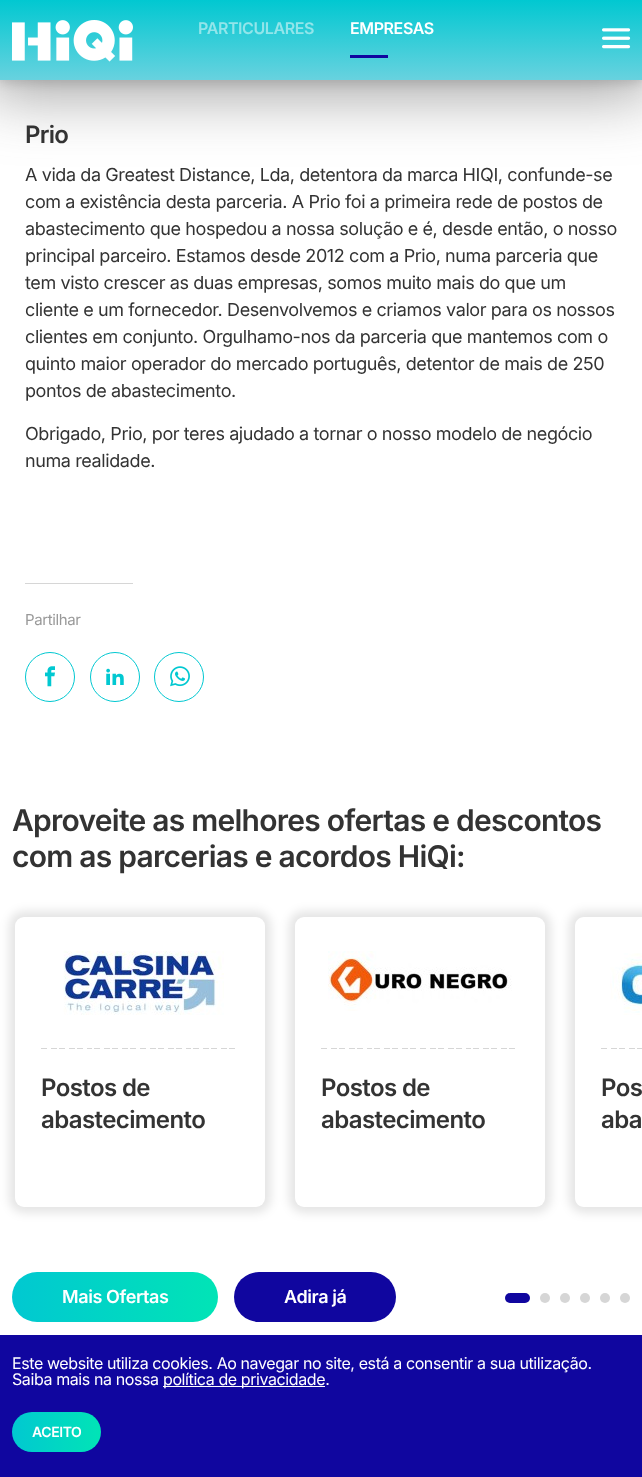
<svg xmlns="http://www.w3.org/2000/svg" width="642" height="1477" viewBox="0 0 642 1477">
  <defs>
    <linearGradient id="g1" gradientUnits="userSpaceOnUse" x1="321" y1="80" x2="321" y2="0"><stop offset="0" stop-color="#68d2df"/><stop offset="1" stop-color="#01c8d1"/></linearGradient>
    <linearGradient id="g2" gradientUnits="userSpaceOnUse" x1="41" y1="1049" x2="239" y2="1049"><stop offset="0" stop-color="#d6d6d6"/><stop offset="0.03" stop-color="#d6d6d6"/><stop offset="0.03" stop-color="#fff"/><stop offset="0.05" stop-color="#fff"/><stop offset="0.05" stop-color="#d6d6d6"/><stop offset="0.08" stop-color="#d6d6d6"/><stop offset="0.08" stop-color="#fff"/><stop offset="0.09" stop-color="#fff"/><stop offset="0.09" stop-color="#d6d6d6"/><stop offset="0.12" stop-color="#d6d6d6"/><stop offset="0.12" stop-color="#fff"/><stop offset="0.14" stop-color="#fff"/><stop offset="0.14" stop-color="#d6d6d6"/><stop offset="0.17" stop-color="#d6d6d6"/><stop offset="0.17" stop-color="#fff"/><stop offset="0.18" stop-color="#fff"/><stop offset="0.18" stop-color="#d6d6d6"/><stop offset="0.21" stop-color="#d6d6d6"/><stop offset="0.21" stop-color="#fff"/><stop offset="0.23" stop-color="#fff"/><stop offset="0.23" stop-color="#d6d6d6"/><stop offset="0.26" stop-color="#d6d6d6"/><stop offset="0.26" stop-color="#fff"/><stop offset="0.27" stop-color="#fff"/><stop offset="0.27" stop-color="#d6d6d6"/><stop offset="0.3" stop-color="#d6d6d6"/><stop offset="0.3" stop-color="#fff"/><stop offset="0.32" stop-color="#fff"/><stop offset="0.32" stop-color="#d6d6d6"/><stop offset="0.35" stop-color="#d6d6d6"/><stop offset="0.35" stop-color="#fff"/><stop offset="0.36" stop-color="#fff"/><stop offset="0.36" stop-color="#d6d6d6"/><stop offset="0.39" stop-color="#d6d6d6"/><stop offset="0.39" stop-color="#fff"/><stop offset="0.41" stop-color="#fff"/><stop offset="0.41" stop-color="#d6d6d6"/><stop offset="0.44" stop-color="#d6d6d6"/><stop offset="0.44" stop-color="#fff"/><stop offset="0.45" stop-color="#fff"/><stop offset="0.45" stop-color="#d6d6d6"/><stop offset="0.48" stop-color="#d6d6d6"/><stop offset="0.48" stop-color="#fff"/><stop offset="0.5" stop-color="#fff"/><stop offset="0.5" stop-color="#d6d6d6"/><stop offset="0.53" stop-color="#d6d6d6"/><stop offset="0.53" stop-color="#fff"/><stop offset="0.55" stop-color="#fff"/><stop offset="0.55" stop-color="#d6d6d6"/><stop offset="0.58" stop-color="#d6d6d6"/><stop offset="0.58" stop-color="#fff"/><stop offset="0.59" stop-color="#fff"/><stop offset="0.59" stop-color="#d6d6d6"/><stop offset="0.62" stop-color="#d6d6d6"/><stop offset="0.62" stop-color="#fff"/><stop offset="0.64" stop-color="#fff"/><stop offset="0.64" stop-color="#d6d6d6"/><stop offset="0.67" stop-color="#d6d6d6"/><stop offset="0.67" stop-color="#fff"/><stop offset="0.68" stop-color="#fff"/><stop offset="0.68" stop-color="#d6d6d6"/><stop offset="0.71" stop-color="#d6d6d6"/><stop offset="0.71" stop-color="#fff"/><stop offset="0.73" stop-color="#fff"/><stop offset="0.73" stop-color="#d6d6d6"/><stop offset="0.76" stop-color="#d6d6d6"/><stop offset="0.76" stop-color="#fff"/><stop offset="0.77" stop-color="#fff"/><stop offset="0.77" stop-color="#d6d6d6"/><stop offset="0.8" stop-color="#d6d6d6"/><stop offset="0.8" stop-color="#fff"/><stop offset="0.82" stop-color="#fff"/><stop offset="0.82" stop-color="#d6d6d6"/><stop offset="0.85" stop-color="#d6d6d6"/><stop offset="0.85" stop-color="#fff"/><stop offset="0.86" stop-color="#fff"/><stop offset="0.86" stop-color="#d6d6d6"/><stop offset="0.89" stop-color="#d6d6d6"/><stop offset="0.89" stop-color="#fff"/><stop offset="0.91" stop-color="#fff"/><stop offset="0.91" stop-color="#d6d6d6"/><stop offset="0.94" stop-color="#d6d6d6"/><stop offset="0.94" stop-color="#fff"/><stop offset="0.95" stop-color="#fff"/><stop offset="0.95" stop-color="#d6d6d6"/><stop offset="0.98" stop-color="#d6d6d6"/><stop offset="0.98" stop-color="#fff"/><stop offset="1" stop-color="#fff"/></linearGradient>
    <linearGradient id="g3" gradientUnits="userSpaceOnUse" x1="321" y1="1049" x2="519" y2="1049"><stop offset="0" stop-color="#d6d6d6"/><stop offset="0.03" stop-color="#d6d6d6"/><stop offset="0.03" stop-color="#fff"/><stop offset="0.05" stop-color="#fff"/><stop offset="0.05" stop-color="#d6d6d6"/><stop offset="0.08" stop-color="#d6d6d6"/><stop offset="0.08" stop-color="#fff"/><stop offset="0.09" stop-color="#fff"/><stop offset="0.09" stop-color="#d6d6d6"/><stop offset="0.12" stop-color="#d6d6d6"/><stop offset="0.12" stop-color="#fff"/><stop offset="0.14" stop-color="#fff"/><stop offset="0.14" stop-color="#d6d6d6"/><stop offset="0.17" stop-color="#d6d6d6"/><stop offset="0.17" stop-color="#fff"/><stop offset="0.18" stop-color="#fff"/><stop offset="0.18" stop-color="#d6d6d6"/><stop offset="0.21" stop-color="#d6d6d6"/><stop offset="0.21" stop-color="#fff"/><stop offset="0.23" stop-color="#fff"/><stop offset="0.23" stop-color="#d6d6d6"/><stop offset="0.26" stop-color="#d6d6d6"/><stop offset="0.26" stop-color="#fff"/><stop offset="0.27" stop-color="#fff"/><stop offset="0.27" stop-color="#d6d6d6"/><stop offset="0.3" stop-color="#d6d6d6"/><stop offset="0.3" stop-color="#fff"/><stop offset="0.32" stop-color="#fff"/><stop offset="0.32" stop-color="#d6d6d6"/><stop offset="0.35" stop-color="#d6d6d6"/><stop offset="0.35" stop-color="#fff"/><stop offset="0.36" stop-color="#fff"/><stop offset="0.36" stop-color="#d6d6d6"/><stop offset="0.39" stop-color="#d6d6d6"/><stop offset="0.39" stop-color="#fff"/><stop offset="0.41" stop-color="#fff"/><stop offset="0.41" stop-color="#d6d6d6"/><stop offset="0.44" stop-color="#d6d6d6"/><stop offset="0.44" stop-color="#fff"/><stop offset="0.45" stop-color="#fff"/><stop offset="0.45" stop-color="#d6d6d6"/><stop offset="0.48" stop-color="#d6d6d6"/><stop offset="0.48" stop-color="#fff"/><stop offset="0.5" stop-color="#fff"/><stop offset="0.5" stop-color="#d6d6d6"/><stop offset="0.53" stop-color="#d6d6d6"/><stop offset="0.53" stop-color="#fff"/><stop offset="0.55" stop-color="#fff"/><stop offset="0.55" stop-color="#d6d6d6"/><stop offset="0.58" stop-color="#d6d6d6"/><stop offset="0.58" stop-color="#fff"/><stop offset="0.59" stop-color="#fff"/><stop offset="0.59" stop-color="#d6d6d6"/><stop offset="0.62" stop-color="#d6d6d6"/><stop offset="0.62" stop-color="#fff"/><stop offset="0.64" stop-color="#fff"/><stop offset="0.64" stop-color="#d6d6d6"/><stop offset="0.67" stop-color="#d6d6d6"/><stop offset="0.67" stop-color="#fff"/><stop offset="0.68" stop-color="#fff"/><stop offset="0.68" stop-color="#d6d6d6"/><stop offset="0.71" stop-color="#d6d6d6"/><stop offset="0.71" stop-color="#fff"/><stop offset="0.73" stop-color="#fff"/><stop offset="0.73" stop-color="#d6d6d6"/><stop offset="0.76" stop-color="#d6d6d6"/><stop offset="0.76" stop-color="#fff"/><stop offset="0.77" stop-color="#fff"/><stop offset="0.77" stop-color="#d6d6d6"/><stop offset="0.8" stop-color="#d6d6d6"/><stop offset="0.8" stop-color="#fff"/><stop offset="0.82" stop-color="#fff"/><stop offset="0.82" stop-color="#d6d6d6"/><stop offset="0.85" stop-color="#d6d6d6"/><stop offset="0.85" stop-color="#fff"/><stop offset="0.86" stop-color="#fff"/><stop offset="0.86" stop-color="#d6d6d6"/><stop offset="0.89" stop-color="#d6d6d6"/><stop offset="0.89" stop-color="#fff"/><stop offset="0.91" stop-color="#fff"/><stop offset="0.91" stop-color="#d6d6d6"/><stop offset="0.94" stop-color="#d6d6d6"/><stop offset="0.94" stop-color="#fff"/><stop offset="0.95" stop-color="#fff"/><stop offset="0.95" stop-color="#d6d6d6"/><stop offset="0.98" stop-color="#d6d6d6"/><stop offset="0.98" stop-color="#fff"/><stop offset="1" stop-color="#fff"/></linearGradient>
    <linearGradient id="g4" gradientUnits="userSpaceOnUse" x1="601" y1="1049" x2="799" y2="1049"><stop offset="0" stop-color="#d6d6d6"/><stop offset="0.03" stop-color="#d6d6d6"/><stop offset="0.03" stop-color="#fff"/><stop offset="0.05" stop-color="#fff"/><stop offset="0.05" stop-color="#d6d6d6"/><stop offset="0.08" stop-color="#d6d6d6"/><stop offset="0.08" stop-color="#fff"/><stop offset="0.09" stop-color="#fff"/><stop offset="0.09" stop-color="#d6d6d6"/><stop offset="0.12" stop-color="#d6d6d6"/><stop offset="0.12" stop-color="#fff"/><stop offset="0.14" stop-color="#fff"/><stop offset="0.14" stop-color="#d6d6d6"/><stop offset="0.17" stop-color="#d6d6d6"/><stop offset="0.17" stop-color="#fff"/><stop offset="0.18" stop-color="#fff"/><stop offset="0.18" stop-color="#d6d6d6"/><stop offset="0.21" stop-color="#d6d6d6"/><stop offset="0.21" stop-color="#fff"/><stop offset="0.23" stop-color="#fff"/><stop offset="0.23" stop-color="#d6d6d6"/><stop offset="0.26" stop-color="#d6d6d6"/><stop offset="0.26" stop-color="#fff"/><stop offset="0.27" stop-color="#fff"/><stop offset="0.27" stop-color="#d6d6d6"/><stop offset="0.3" stop-color="#d6d6d6"/><stop offset="0.3" stop-color="#fff"/><stop offset="0.32" stop-color="#fff"/><stop offset="0.32" stop-color="#d6d6d6"/><stop offset="0.35" stop-color="#d6d6d6"/><stop offset="0.35" stop-color="#fff"/><stop offset="0.36" stop-color="#fff"/><stop offset="0.36" stop-color="#d6d6d6"/><stop offset="0.39" stop-color="#d6d6d6"/><stop offset="0.39" stop-color="#fff"/><stop offset="0.41" stop-color="#fff"/><stop offset="0.41" stop-color="#d6d6d6"/><stop offset="0.44" stop-color="#d6d6d6"/><stop offset="0.44" stop-color="#fff"/><stop offset="0.45" stop-color="#fff"/><stop offset="0.45" stop-color="#d6d6d6"/><stop offset="0.48" stop-color="#d6d6d6"/><stop offset="0.48" stop-color="#fff"/><stop offset="0.5" stop-color="#fff"/><stop offset="0.5" stop-color="#d6d6d6"/><stop offset="0.53" stop-color="#d6d6d6"/><stop offset="0.53" stop-color="#fff"/><stop offset="0.55" stop-color="#fff"/><stop offset="0.55" stop-color="#d6d6d6"/><stop offset="0.58" stop-color="#d6d6d6"/><stop offset="0.58" stop-color="#fff"/><stop offset="0.59" stop-color="#fff"/><stop offset="0.59" stop-color="#d6d6d6"/><stop offset="0.62" stop-color="#d6d6d6"/><stop offset="0.62" stop-color="#fff"/><stop offset="0.64" stop-color="#fff"/><stop offset="0.64" stop-color="#d6d6d6"/><stop offset="0.67" stop-color="#d6d6d6"/><stop offset="0.67" stop-color="#fff"/><stop offset="0.68" stop-color="#fff"/><stop offset="0.68" stop-color="#d6d6d6"/><stop offset="0.71" stop-color="#d6d6d6"/><stop offset="0.71" stop-color="#fff"/><stop offset="0.73" stop-color="#fff"/><stop offset="0.73" stop-color="#d6d6d6"/><stop offset="0.76" stop-color="#d6d6d6"/><stop offset="0.76" stop-color="#fff"/><stop offset="0.77" stop-color="#fff"/><stop offset="0.77" stop-color="#d6d6d6"/><stop offset="0.8" stop-color="#d6d6d6"/><stop offset="0.8" stop-color="#fff"/><stop offset="0.82" stop-color="#fff"/><stop offset="0.82" stop-color="#d6d6d6"/><stop offset="0.85" stop-color="#d6d6d6"/><stop offset="0.85" stop-color="#fff"/><stop offset="0.86" stop-color="#fff"/><stop offset="0.86" stop-color="#d6d6d6"/><stop offset="0.89" stop-color="#d6d6d6"/><stop offset="0.89" stop-color="#fff"/><stop offset="0.91" stop-color="#fff"/><stop offset="0.91" stop-color="#d6d6d6"/><stop offset="0.94" stop-color="#d6d6d6"/><stop offset="0.94" stop-color="#fff"/><stop offset="0.95" stop-color="#fff"/><stop offset="0.95" stop-color="#d6d6d6"/><stop offset="0.98" stop-color="#d6d6d6"/><stop offset="0.98" stop-color="#fff"/><stop offset="1" stop-color="#fff"/></linearGradient>
    <linearGradient id="g5" gradientUnits="userSpaceOnUse" x1="12" y1="1297" x2="218" y2="1297"><stop offset="0" stop-color="#01c8d1"/><stop offset="1" stop-color="#01e4b6"/></linearGradient>
    <linearGradient id="g6" gradientUnits="userSpaceOnUse" x1="12" y1="1432" x2="101" y2="1432"><stop offset="0" stop-color="#01c8d1"/><stop offset="1" stop-color="#01e4b6"/></linearGradient>
  </defs>
  <rect width="100%" height="100%" fill="#fff"/>
  <path d="M-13 -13h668v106H-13z" fill="#4f4f4f8c" filter="blur(32px)"/>
  <rect x="-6" y="-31" width="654" height="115" rx="16" fill="#0000001a" filter="blur(5px)"/>
  <path d="M0 0h642v80H0z" fill="url(#g1)"/>
  <image x="12" y="20" width="121" height="42" href="img/1.png"/>
  <path d="M350 55h38v3H350z" fill="#10069f"/>
  <image x="602" y="28" width="29" height="21" href="img/2.png"/>
  <path d="M25 583h108v1H25z" fill="#d6d6d6"/>
  <circle cx="50" cy="677" r="24.5" fill="none" stroke="#01c8d1"/>
  <image x="45" y="666" width="10" height="21" href="img/3.png"/>
  <circle cx="115" cy="677" r="24.5" fill="none" stroke="#01c8d1"/>
  <image x="106" y="668" width="18" height="17" href="img/4.png"/>
  <circle cx="179" cy="677" r="24.5" fill="none" stroke="#01c8d1"/>
  <image x="170" y="666" width="20" height="21" href="img/5.png"/>
  <rect x="9" y="911" width="262" height="302" rx="15" fill="#0000001a" filter="blur(5px)"/>
  <rect x="15" y="917" width="250" height="290" rx="9" fill="#fff"/>
  <image x="63" y="950" width="161" height="65" href="img/6.png"/>
  <path d="M41 1048h198v1H41z" fill="url(#g2)"/>
  <rect x="289" y="911" width="262" height="302" rx="15" fill="#0000001a" filter="blur(5px)"/>
  <rect x="295" y="917" width="250" height="290" rx="9" fill="#fff"/>
  <image x="328" y="951" width="184" height="60" href="img/7.png"/>
  <path d="M321 1048h198v1H321z" fill="url(#g3)"/>
  <rect x="569" y="911" width="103" height="302" rx="15" fill="#0000001a" filter="blur(5px)"/>
  <path d="M584 917H642V1207H584C579 1207 575 1203 575 1198V926C575 921 579 917 584 917Z" fill="#fff"/>
  <image x="610" y="953" width="32" height="62" href="img/8.png"/>
  <path d="M601 1048h41v1H601z" fill="url(#g4)"/>
  <rect x="12" y="1272" width="206" height="50" rx="25" fill="url(#g5)"/>
  <rect x="234" y="1272" width="162" height="50" rx="25" fill="#10069f"/>
  <rect x="505" y="1293" width="25" height="10" rx="5" fill="#10069f"/>
  <circle cx="545" cy="1298" r="5" fill="#d6d6d6"/>
  <circle cx="565" cy="1298" r="5" fill="#d6d6d6"/>
  <circle cx="585" cy="1298" r="5" fill="#d6d6d6"/>
  <circle cx="605" cy="1298" r="5" fill="#d6d6d6"/>
  <circle cx="625" cy="1298" r="5" fill="#d6d6d6"/>
  <path d="M0 1335h642v142H0z" fill="#10069f"/>
  <path d="M163 1386h162v1H163z" fill="#fff"/>
  <rect x="12" y="1412" width="89" height="40" rx="20" fill="url(#g6)"/>
  <text x="198" y="34" font-family="Inter" font-size="16" font-weight="600" letter-spacing="-0.4" fill="#92e5ea">PARTICULARES</text>
  <text x="350" y="34" font-family="Inter" font-size="16" font-weight="600" letter-spacing="-0.4" fill="#fff">EMPRESAS</text>
  <text x="25" y="143" font-family="Inter" font-size="24" font-weight="600" letter-spacing="-0.75" fill="#333">Prio</text>
  <g font-family="Inter" font-size="18" letter-spacing="-0.4" fill="#333">
    <text x="25" y="181">A vida da Greatest Distance, Lda, detentora da marca HIQI, confunde-se</text>
    <text x="25" y="208">com a existência desta parceria. A Prio foi a primeira rede de postos de</text>
    <text x="25" y="235">abastecimento que hospedou a nossa solução e é, desde então, o nosso</text>
    <text x="25" y="262">principal parceiro. Estamos desde 2012 com a Prio, numa parceria que</text>
    <text x="25" y="289">tem visto crescer as duas empresas, somos muito mais do que um</text>
    <text x="25" y="316">cliente e um fornecedor. Desenvolvemos e criamos valor para os nossos</text>
    <text x="25" y="343">clientes em conjunto. Orgulhamo-nos da parceria que mantemos com o</text>
    <text x="25" y="370">quinto maior operador do mercado português, detentor de mais de 250</text>
    <text x="25" y="397">pontos de abastecimento.</text>
    <text x="25" y="440">Obrigado, Prio, por teres ajudado a tornar o nosso modelo de negócio</text>
    <text x="25" y="467">numa realidade.</text>
  </g>
  <text x="25" y="625" font-family="Inter" font-size="15" letter-spacing="-0.4" fill="#999">Partilhar</text>
  <g font-family="Inter" font-size="30" font-weight="600" letter-spacing="-0.75" fill="#333">
    <text x="12" y="831">Aproveite as melhores ofertas e descontos</text>
    <text x="12" y="867">com as parcerias e acordos HiQi:</text>
  </g>
  <g font-family="Inter" font-size="24" font-weight="600" letter-spacing="-0.6" fill="#333">
    <text x="41" y="1096">Postos de</text>
    <text x="41" y="1128">abastecimento</text>
    <text x="321" y="1096">Postos de</text>
    <text x="321" y="1128">abastecimento</text>
    <text x="601" y="1096">Pos</text>
    <text x="601" y="1128">aba</text>
  </g>
  <g font-family="Inter" font-size="18" font-weight="600" letter-spacing="-0.4" fill="#fff">
    <text x="62" y="1303">Mais Ofertas</text>
    <text x="284" y="1303">Adira já</text>
  </g>
  <g font-family="Inter" font-size="16" letter-spacing="-0.4" fill="#fff">
    <text x="12" y="1369">Este website utiliza cookies. Ao navegar no site, está a consentir a sua utilização.</text>
    <text x="12" y="1385">Saiba mais na nossa</text>
    <text x="163" y="1385">política de privacidade.</text>
  </g>
  <text x="32" y="1437" font-family="Inter" font-size="14" font-weight="600" letter-spacing="-0.4" fill="#fff">ACEITO</text>
</svg>
